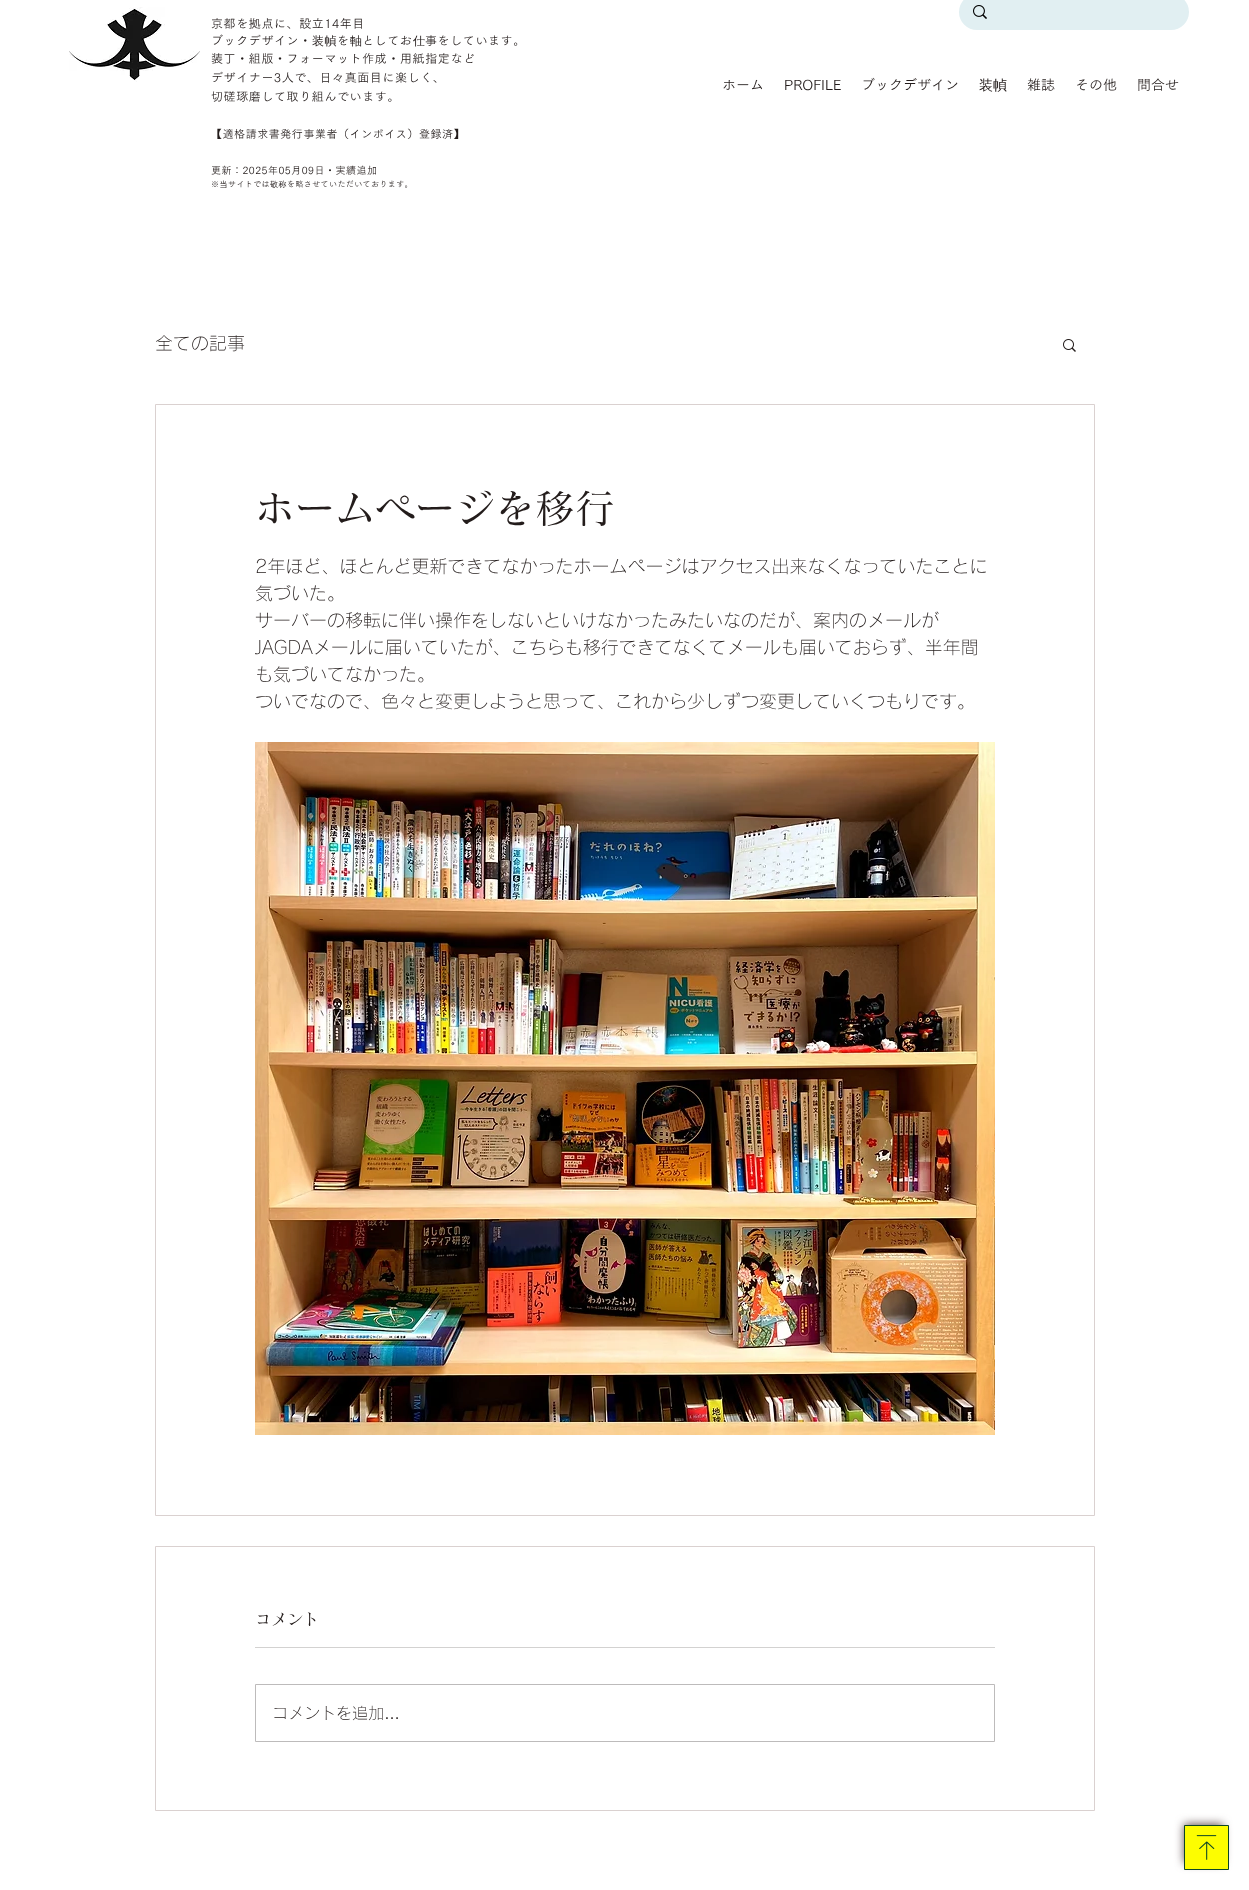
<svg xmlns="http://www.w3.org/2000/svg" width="1249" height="1890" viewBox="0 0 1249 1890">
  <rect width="100%" height="100%" fill="#fff"/>
  <image x="69" y="7" width="131" height="75" href="img/1.png"/>
  <rect x="959" y="-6" width="230" height="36" rx="18" fill="#e1eff2"/>
  <image x="973" y="5" width="14" height="14" href="img/2.png"/>
  <image x="1063" y="339" width="13" height="13" href="img/3.png"/>
  <path d="M155.5 404.5h939v1111H155.5z" fill="none" stroke="#dad1d0"/>
  <image x="255" y="742" width="740" height="693" href="img/4.png"/>
  <path d="M155.5 1546.5h939v264H155.5z" fill="none" stroke="#dad1d0"/>
  <path d="M255 1647h740v1H255z" fill="#d3d2d1"/>
  <path d="M255.5 1684.5h739v57H255.5z" fill="none" stroke="#bdbbbb"/>
  <path d="M1184 1824h39v39H1184z" fill="#624f4c" filter="blur(5px)"/>
  <path d="M1184.5 1825.5h44v44H1184.5z" fill="#fdfd00" stroke="#0c4426"/>
  <image x="1196" y="1835" width="21" height="25" href="img/5.png"/>
  <g font-family="'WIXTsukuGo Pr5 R'" font-size="12" letter-spacing="0.6" fill="#231c1b">
    <text x="211" y="28">京都を拠点に、設立14年目</text>
    <text x="211" y="45">ブックデザイン・</text>
  </g>
  <text x="312" y="45" font-family="WenQuanYi Zen Hei" font-size="12" font-weight="500" letter-spacing="0.6" fill="#231c1b">装幀</text>
  <text x="337" y="45" font-family="'WIXTsukuGo Pr5 R'" font-size="12" letter-spacing="0.6" fill="#231c1b">を</text>
  <text x="350" y="45" font-family="WenQuanYi Zen Hei" font-size="12" font-weight="500" letter-spacing="0.6" fill="#231c1b">軸</text>
  <text x="362" y="45" font-family="'WIXTsukuGo Pr5 R'" font-size="12" letter-spacing="0.6" fill="#231c1b">としてお</text>
  <text x="413" y="45" font-family="WenQuanYi Zen Hei" font-size="12" font-weight="500" letter-spacing="0.6" fill="#231c1b">仕</text>
  <g font-family="'WIXTsukuGo Pr5 R'" font-size="12" letter-spacing="0.6" fill="#231c1b">
    <text x="425" y="45">事をしています。</text>
    <text x="211" y="63">装丁・組版・フォーマット作成・用紙指定など</text>
    <text x="211" y="82">デザイナー3人で、日々真面目に楽しく、</text>
    <text x="211" y="101">切磋琢磨して取り組んでいます。</text>
  </g>
  <text x="211" y="138" font-family="'WIXTsukuGo Pr5 R'" font-size="11" letter-spacing="0.55" fill="#231c1b">【適格請求書発行事業者（インボイス）登録済】</text>
  <text x="211" y="174" font-family="'WIXTsukuGo Pr5 R'" font-size="10" letter-spacing="0.5" fill="#231c1b">更新：2025年05月09日・実績追加</text>
  <text x="211" y="187" font-family="WenQuanYi Zen Hei" font-size="8" font-weight="500" letter-spacing="0.4" fill="#231c1b">※当</text>
  <text x="228" y="187" font-family="'WIXTsukuGo Pr5 R'" font-size="8" letter-spacing="0.4" fill="#231c1b">サイトでは</text>
  <text x="270" y="187" font-family="WenQuanYi Zen Hei" font-size="8" font-weight="500" letter-spacing="0.4" fill="#231c1b">敬称</text>
  <text x="287" y="187" font-family="'WIXTsukuGo Pr5 R'" font-size="8" letter-spacing="0.4" fill="#231c1b">を略させていただいております。</text>
  <g font-family="'WIXTsukuGo Pr5 R'" font-size="14" fill="#231c1b">
    <text x="722" y="90">ホーム</text>
    <text x="784" y="90">PROFILE</text>
    <text x="861" y="90">ブックデザイン</text>
  </g>
  <text x="979" y="90" font-family="WenQuanYi Zen Hei" font-size="14" font-weight="500" fill="#231c1b">装幀</text>
  <g font-family="'WIXTsukuGo Pr5 R'" font-size="14" fill="#231c1b">
    <text x="1027" y="90">雑誌</text>
    <text x="1075" y="90">その他</text>
    <text x="1137" y="90">問合せ</text>
  </g>
  <text x="155" y="350" font-family="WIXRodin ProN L" font-size="18" font-weight="300" fill="#231c1b">全ての記事</text>
  <text x="255" y="523" font-family="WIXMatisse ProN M" font-size="40" font-weight="500" fill="#231c1b">ホームページを移行</text>
  <g font-family="WIXRodin ProN L" font-size="18" font-weight="300" fill="#231c1b">
    <text x="255" y="573">2年ほど、ほとんど更新できてなかったホームページはアクセス出来なくなっていたことに</text>
    <text x="255" y="600">気づいた。</text>
    <text x="255" y="627">サーバーの移転に伴い操作をしないといけなかったみたいなのだが、案内のメールが</text>
    <text x="255" y="654">JAGDAメールに届いていたが、こちらも移行できてなくてメールも届いておらず、半年間</text>
    <text x="255" y="681">も気づいてなかった。</text>
    <text x="255" y="708">ついでなので、色々と変更しようと思って、これから少しずつ変更していくつもりです。</text>
  </g>
  <text x="255" y="1625" font-family="WIXMatisse ProN M" font-size="16" font-weight="500" fill="#231c1b">コメント</text>
  <text x="272" y="1719" font-family="WIXRodin ProN L" font-size="16" font-weight="300" fill="#231c1b">コメントを追加</text>
  <text x="384" y="1719" font-family="Liberation Sans" font-size="16" fill="#231c1b">…</text>
</svg>
